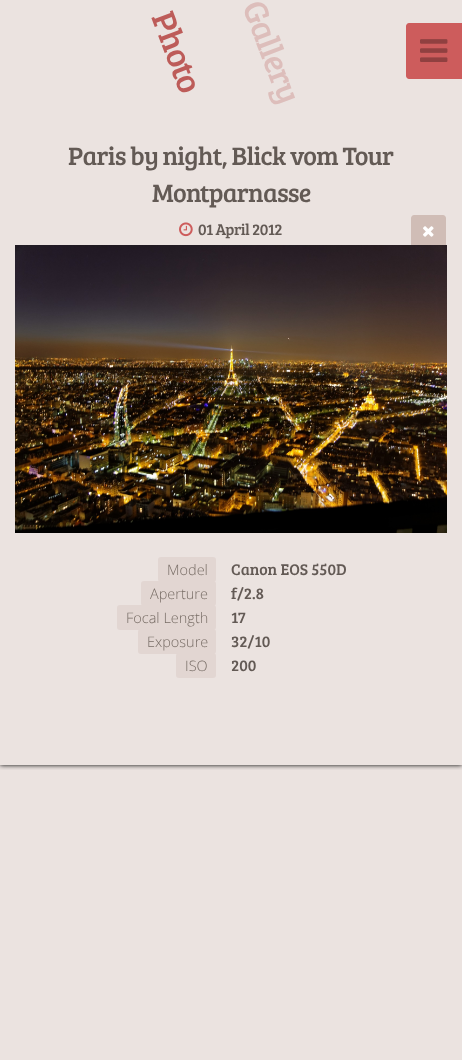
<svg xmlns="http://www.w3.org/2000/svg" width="462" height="1060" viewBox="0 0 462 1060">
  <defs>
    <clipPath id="clip1"><path d="M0 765h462v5H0z"/></clipPath>
  </defs>
  <rect width="100%" height="100%" fill="#ebe3e0"/>
  <g clip-path="url(#clip1)">
    <path d="M0 0h462v765H0z" fill="#000" filter="blur(2.5px)"/>
  </g>
  <image x="179" y="222" width="14" height="15" href="img/1.png"/>
  <path d="M414 215H443C444.5 215 446 216.5 446 218V245H411V218C411 216.5 412.5 215 414 215Z" fill="#d0bdb6"/>
  <image x="423" y="226" width="11" height="11" href="img/2.png"/>
  <image x="15" y="245" width="432" height="288" href="img/3.png"/>
  <rect x="158" y="557" width="58" height="25" rx="3" fill="#e2d6d2"/>
  <rect x="141" y="581" width="75" height="25" rx="3" fill="#e2d6d2"/>
  <rect x="117" y="605" width="99" height="25" rx="3" fill="#e2d6d2"/>
  <rect x="138" y="629" width="78" height="25" rx="3" fill="#e2d6d2"/>
  <rect x="176" y="653" width="40" height="25" rx="3" fill="#e2d6d2"/>
  <path d="M409 23H462V79H409C407.5 79 406 77.5 406 76V26C406 24.5 407.5 23 409 23Z" fill="#cd5c5c"/>
  <image x="420" y="39" width="28" height="23" href="img/4.png"/>
  <text x="151" y="17" transform="rotate(69.2 151 17)" font-family="Bree Serif" font-size="34" letter-spacing="-1" fill="#bd5c59">Photo</text>
  <text x="242" y="6" transform="rotate(69.2 242 6)" font-family="Bree Serif" font-size="34" letter-spacing="-1" fill="#ddbebb">Gallery</text>
  <g font-family="Bree Serif" font-size="26" letter-spacing="-0.75" fill="#635a55">
    <text x="68" y="165">Paris by night, Blick vom Tour</text>
    <text x="152" y="202">Montparnasse</text>
  </g>
  <text x="198" y="235" font-family="Bree Serif" font-size="16" letter-spacing="-0.5" fill="#635a55">01 April 2012</text>
  <text x="167" y="575" font-family="Open Sans" font-size="14.5" font-weight="300" fill="#786d66">Model</text>
  <text x="231" y="575" font-family="Bree Serif" font-size="16" fill="#635a55">Canon EOS 550D</text>
  <text x="150" y="599" font-family="Open Sans" font-size="14.5" font-weight="300" fill="#786d66">Aperture</text>
  <text x="231" y="599" font-family="Bree Serif" font-size="16" fill="#635a55">f/2.8</text>
  <text x="126" y="623" font-family="Open Sans" font-size="14.5" font-weight="300" fill="#786d66">Focal Length</text>
  <text x="231" y="623" font-family="Bree Serif" font-size="16" fill="#635a55">17</text>
  <text x="147" y="647" font-family="Open Sans" font-size="14.5" font-weight="300" fill="#786d66">Exposure</text>
  <text x="231" y="647" font-family="Bree Serif" font-size="16" fill="#635a55">32/10</text>
  <text x="185" y="671" font-family="Open Sans" font-size="14.5" font-weight="300" fill="#786d66">ISO</text>
  <text x="231" y="671" font-family="Bree Serif" font-size="16" fill="#635a55">200</text>
</svg>
